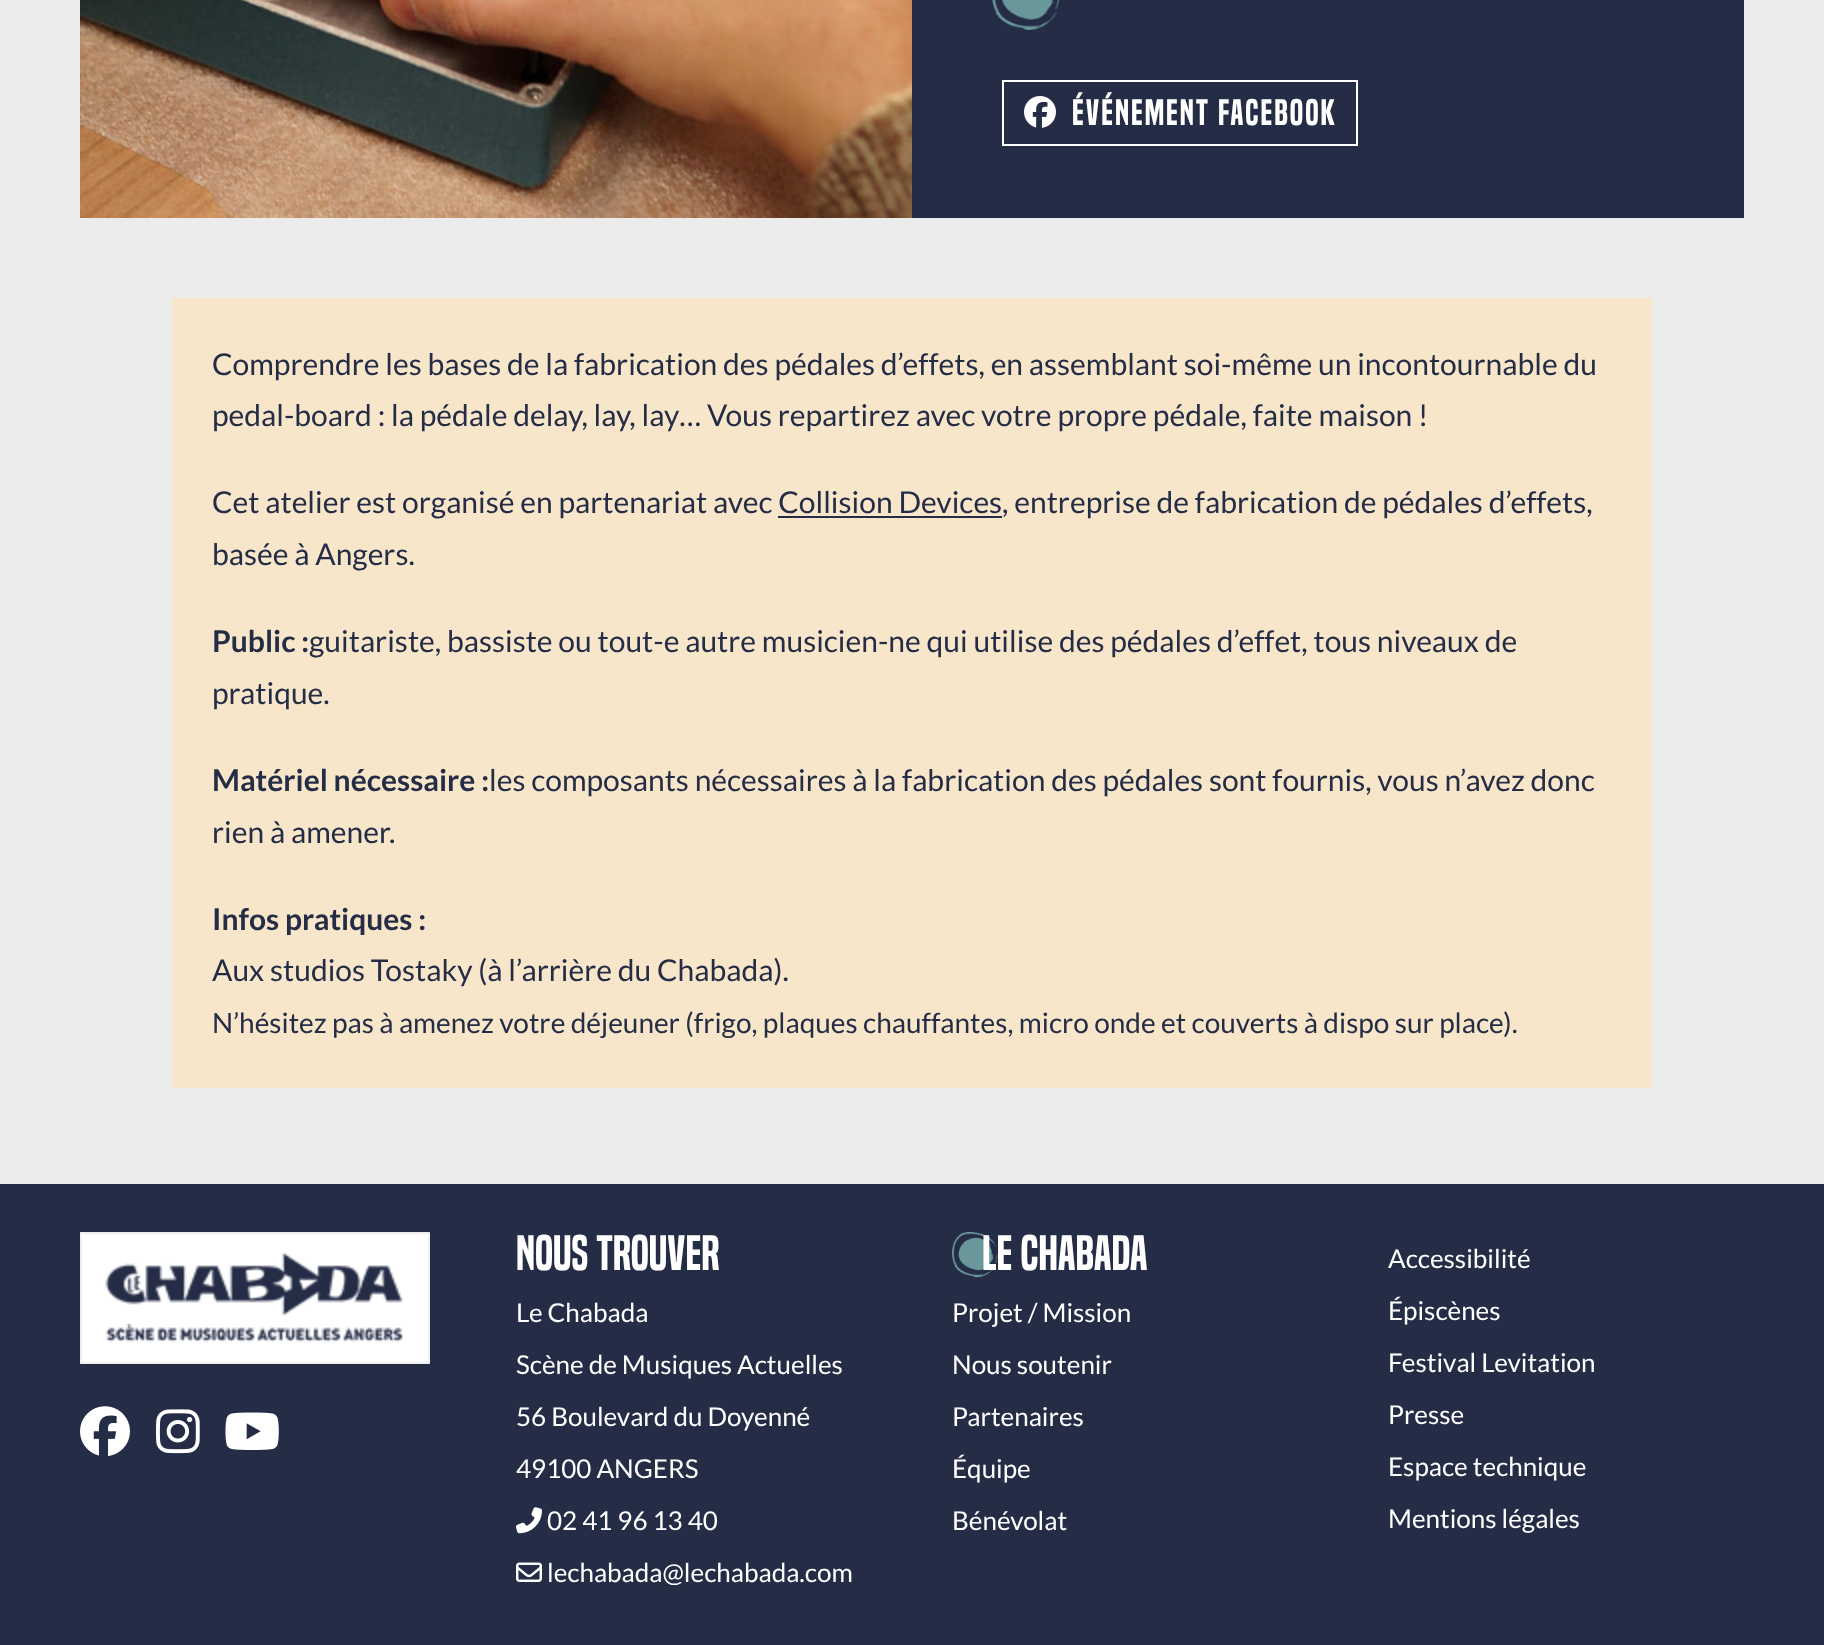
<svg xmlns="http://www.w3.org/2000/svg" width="1824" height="1645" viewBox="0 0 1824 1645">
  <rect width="100%" height="100%" fill="#edeced"/>
  <path d="M912 0h832v218H912z" fill="#252c46"/>
  <image x="80" y="0" width="832" height="218" href="img/1.png"/>
  <image x="992" y="0" width="68" height="30" href="img/2.png"/>
  <path d="M1003 81h354v64H1003z" fill="none" stroke="#fff" stroke-width="2"/>
  <image x="1024" y="96" width="32" height="32" href="img/3.png"/>
  <path d="M172 298h1480v790H172z" fill="#f7e6c9"/>
  <path d="M778 516h224v2H778z" fill="#252c46"/>
  <path d="M0 1184h1824v461H0z" fill="#252c46"/>
  <image x="80" y="1232" width="350" height="132" href="img/4.png"/>
  <image x="80" y="1406" width="50" height="50" href="img/5.png"/>
  <image x="156" y="1409" width="44" height="45" href="img/6.png"/>
  <image x="225" y="1412" width="54" height="38" href="img/7.png"/>
  <image x="516" y="1507" width="26" height="27" href="img/8.png"/>
  <image x="516" y="1562" width="26" height="20" href="img/9.png"/>
  <image x="952" y="1232" width="46" height="46" href="img/10.png"/>
  <text x="1072" y="125" font-family="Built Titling" font-size="34" letter-spacing="2" fill="#fff">ÉVÉNEMENT FACEBOOK</text>
  <g font-family="Lato" font-size="30" fill="#252c46">
    <text x="212" y="375">Comprendre les bases de la fabrication des pédales d’effets, en assemblant soi-même un incontournable du</text>
    <text x="212" y="426">pedal-board : la pédale delay, lay, lay… Vous repartirez avec votre propre pédale, faite maison !</text>
    <text x="212" y="513">Cet atelier est organisé en partenariat avec Collision Devices, entreprise de fabrication de pédales d’effets,</text>
    <text x="212" y="565">basée à Angers.</text>
  </g>
  <text x="212" y="652" font-family="Lato" font-size="30" font-weight="bold" fill="#252c46">Public :</text>
  <g font-family="Lato" font-size="30" fill="#252c46">
    <text x="309" y="652">guitariste, bassiste ou tout-e autre musicien-ne qui utilise des pédales d’effet, tous niveaux de</text>
    <text x="212" y="704">pratique.</text>
  </g>
  <text x="212" y="791" font-family="Lato" font-size="30" font-weight="bold" fill="#252c46">Matériel nécessaire :</text>
  <g font-family="Lato" font-size="30" fill="#252c46">
    <text x="489" y="791">les composants nécessaires à la fabrication des pédales sont fournis, vous n’avez donc</text>
    <text x="212" y="843">rien à amener.</text>
  </g>
  <text x="212" y="930" font-family="Lato" font-size="30" font-weight="bold" fill="#252c46">Infos pratiques :</text>
  <text x="212" y="981" font-family="Lato" font-size="30" fill="#252c46">Aux studios Tostaky (à l’arrière du Chabada).</text>
  <text x="212" y="1033" font-family="Lato" font-size="28" fill="#252c46">N’hésitez pas à amenez votre déjeuner (frigo, plaques chauffantes, micro onde et couverts à dispo sur place).</text>
  <text x="516" y="1270" font-family="Built Titling" font-size="46" fill="#fff">Nous trouver</text>
  <g font-family="Lato" font-size="26" fill="#fff">
    <text x="516" y="1322">Le Chabada</text>
    <text x="516" y="1374">Scène de Musiques Actuelles</text>
    <text x="516" y="1426">56 Boulevard du Doyenné</text>
    <text x="516" y="1478">49100 ANGERS</text>
    <text x="547" y="1530">02 41 96 13 40</text>
    <text x="547" y="1582">lechabada@lechabada.com</text>
  </g>
  <text x="982" y="1270" font-family="Built Titling" font-size="46" fill="#fff">LE CHABADA</text>
  <g font-family="Lato" font-size="26" fill="#fff">
    <text x="952" y="1322">Projet / Mission</text>
    <text x="952" y="1374">Nous soutenir</text>
    <text x="952" y="1426">Partenaires</text>
    <text x="952" y="1478">Équipe</text>
    <text x="952" y="1530">Bénévolat</text>
    <text x="1388" y="1268">Accessibilité</text>
    <text x="1388" y="1320">Épiscènes</text>
    <text x="1388" y="1372">Festival Levitation</text>
    <text x="1388" y="1424">Presse</text>
    <text x="1388" y="1476">Espace technique</text>
    <text x="1388" y="1528">Mentions légales</text>
  </g>
</svg>
